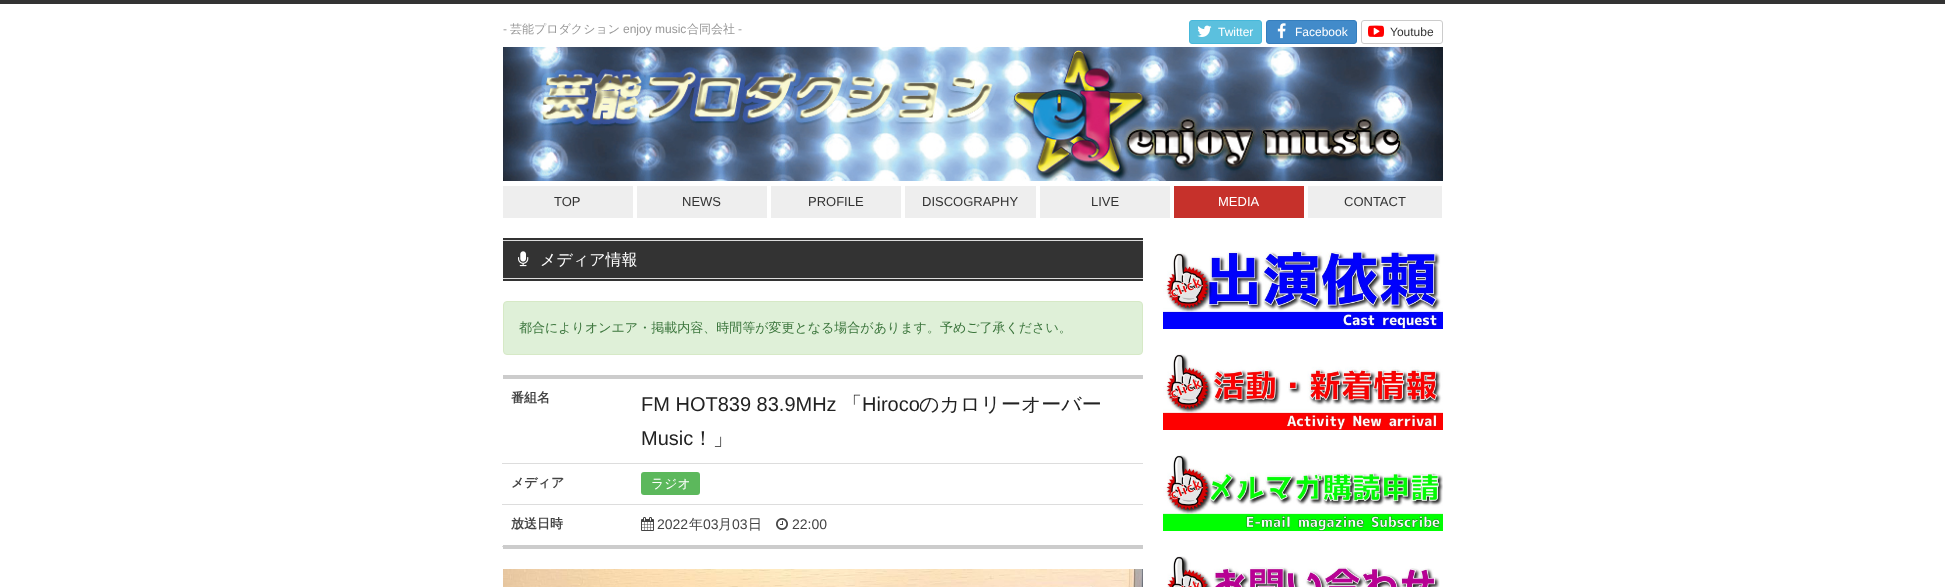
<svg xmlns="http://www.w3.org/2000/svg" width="1945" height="587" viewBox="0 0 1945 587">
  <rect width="100%" height="100%" fill="#fff"/>
  <path d="M0 0h1945v4H0z" fill="#333"/>
  <rect x="1189.5" y="20.5" width="72" height="23" rx="2.5" fill="#5bc0de" stroke="#46b8da"/>
  <image x="1197" y="25" width="15" height="12" href="img/1.png"/>
  <rect x="1266.5" y="20.5" width="90" height="23" rx="2.5" fill="#428bca" stroke="#357ebd"/>
  <image x="1277" y="23" width="9" height="16" href="img/2.png"/>
  <rect x="1361.5" y="20.5" width="81" height="23" rx="2.5" fill="none" stroke="#ccc"/>
  <image x="1368" y="25" width="16" height="12" href="img/3.png"/>
  <image x="503" y="47" width="940" height="134" href="img/4.png"/>
  <path d="M503 186h130v32H503z" fill="#eee"/>
  <path d="M637 186h130v32H637z" fill="#eee"/>
  <path d="M771 186h130v32H771z" fill="#eee"/>
  <path d="M905 186h131v32H905z" fill="#eee"/>
  <path d="M1040 186h130v32H1040z" fill="#eee"/>
  <path d="M1174 186h130v32H1174z" fill="#c6312b"/>
  <path d="M1308 186h134v32H1308z" fill="#eee"/>
  <path d="M503 238h640v43H503z" fill="#333"/>
  <path d="M503 240h640v1H503z" fill="#ddd"/>
  <path d="M503 278h640v1H503z" fill="#ddd"/>
  <image x="518" y="251" width="11" height="16" href="img/5.png"/>
  <rect x="503.5" y="301.5" width="639" height="53" rx="3.5" fill="#dff0d8" stroke="#d6e9c6"/>
  <path d="M503 375h640v4H503z" fill="#ccc"/>
  <path d="M503 545h640v4H503z" fill="#ccc"/>
  <path d="M502 463h641v1H502z" fill="#ddd"/>
  <path d="M502 504h641v1H502z" fill="#ddd"/>
  <rect x="641" y="472" width="59" height="23" rx="3" fill="#5cb85c"/>
  <path d="M502 546h1v1H502z" fill="#ddd"/>
  <image x="641" y="517" width="13" height="14" href="img/6.png"/>
  <image x="776" y="518" width="12" height="12" href="img/7.png"/>
  <image x="503" y="569" width="640" height="18" href="img/8.png"/>
  <image x="1163" y="250" width="280" height="79" href="img/9.png"/>
  <image x="1163" y="354" width="280" height="76" href="img/10.png"/>
  <image x="1163" y="455" width="280" height="76" href="img/11.png"/>
  <image x="1167" y="556" width="273" height="31" href="img/12.png"/>
  <text x="503" y="33" font-family="Liberation Sans" font-size="12" fill="#999">-</text>
  <text x="510" y="33" font-family="WenQuanYi Zen Hei" font-size="12" font-weight="500" fill="#999">芸能プロダクション</text>
  <text x="623" y="33" font-family="Liberation Sans" font-size="12" fill="#999">enjoy music</text>
  <text x="687" y="33" font-family="WenQuanYi Zen Hei" font-size="12" font-weight="500" fill="#999">合同会社</text>
  <text x="738" y="33" font-family="Liberation Sans" font-size="12" fill="#999">-</text>
  <g font-family="Liberation Sans" font-size="12" fill="#fff">
    <text x="1218" y="36">Twitter</text>
    <text x="1295" y="36">Facebook</text>
  </g>
  <text x="1390" y="36" font-family="Liberation Sans" font-size="12" fill="#333">Youtube</text>
  <g font-family="Liberation Sans" font-size="13" fill="#333">
    <text x="554" y="206">TOP</text>
    <text x="682" y="206">NEWS</text>
    <text x="808" y="206">PROFILE</text>
    <text x="922" y="206">DISCOGRAPHY</text>
    <text x="1091" y="206">LIVE</text>
  </g>
  <text x="1218" y="206" font-family="Liberation Sans" font-size="13" fill="#fff">MEDIA</text>
  <text x="1344" y="206" font-family="Liberation Sans" font-size="13" fill="#333">CONTACT</text>
  <text x="540" y="265" font-family="WenQuanYi Zen Hei" font-size="16" font-weight="500" fill="#fff">メディア情報</text>
  <text x="519" y="332" font-family="WenQuanYi Zen Hei" font-size="13" font-weight="500" fill="#3c763d">都合によりオンエア・掲載内容、時間等が変更となる場合があります。予めご了承ください。</text>
  <text x="511" y="402" font-family="WenQuanYi Zen Hei" font-size="13" font-weight="bold" fill="#444">番組名</text>
  <text x="641" y="411" font-family="Liberation Sans" font-size="20" fill="#222">FM HOT839 83.9MHz</text>
  <text x="842" y="411" font-family="WenQuanYi Zen Hei" font-size="20" font-weight="500" fill="#222">「</text>
  <text x="862" y="411" font-family="Liberation Sans" font-size="20" fill="#222">Hiroco</text>
  <text x="919" y="411" font-family="WenQuanYi Zen Hei" font-size="20" font-weight="500" fill="#222">のカロリーオーバー</text>
  <text x="641" y="445" font-family="Liberation Sans" font-size="20" fill="#222">Music</text>
  <text x="693" y="445" font-family="WenQuanYi Zen Hei" font-size="20" font-weight="500" fill="#222">！」</text>
  <text x="511" y="487" font-family="WenQuanYi Zen Hei" font-size="13" font-weight="bold" fill="#444">メディア</text>
  <text x="651" y="488" font-family="WenQuanYi Zen Hei" font-size="13" font-weight="500" fill="#fff">ラジオ</text>
  <text x="511" y="528" font-family="WenQuanYi Zen Hei" font-size="13" font-weight="bold" fill="#444">放送日時</text>
  <text x="657" y="529" font-family="Liberation Sans" font-size="14" fill="#444">2022</text>
  <text x="689" y="529" font-family="WenQuanYi Zen Hei" font-size="14" font-weight="500" fill="#444">年</text>
  <text x="703" y="529" font-family="Liberation Sans" font-size="14" fill="#444">03</text>
  <text x="718" y="529" font-family="WenQuanYi Zen Hei" font-size="14" font-weight="500" fill="#444">月</text>
  <text x="732" y="529" font-family="Liberation Sans" font-size="14" fill="#444">03</text>
  <text x="748" y="529" font-family="WenQuanYi Zen Hei" font-size="14" font-weight="500" fill="#444">日</text>
  <text x="792" y="529" font-family="Liberation Sans" font-size="14" fill="#444">22:00</text>
</svg>
